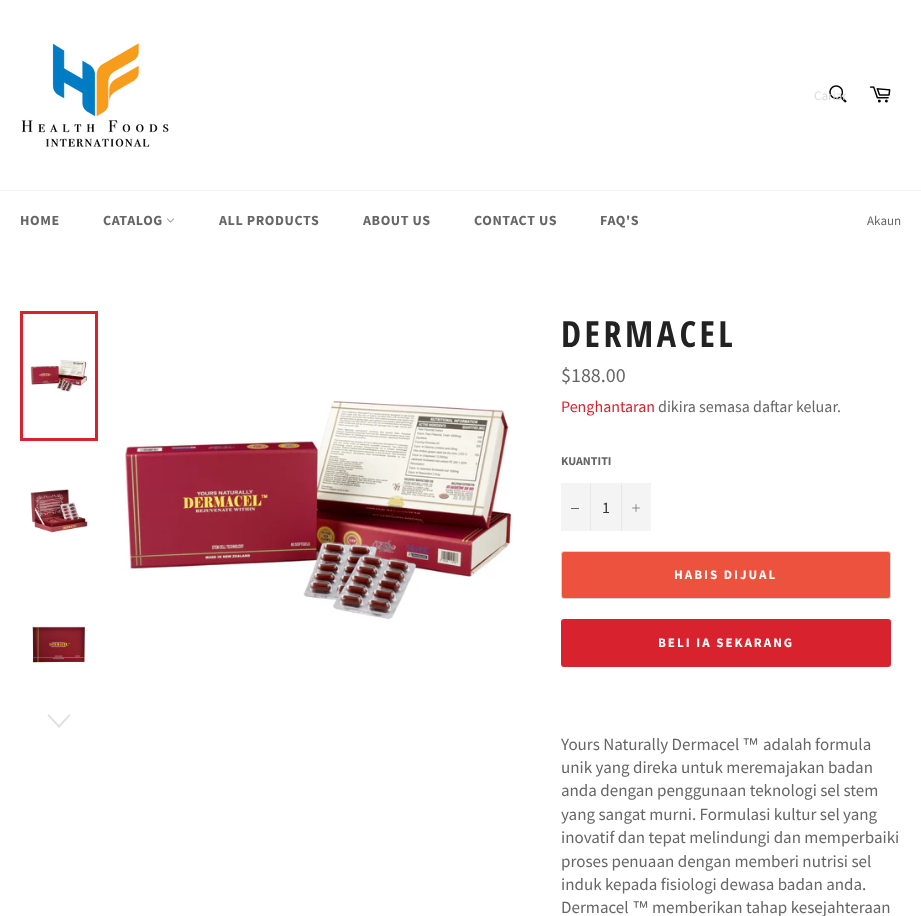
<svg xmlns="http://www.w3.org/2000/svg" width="921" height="916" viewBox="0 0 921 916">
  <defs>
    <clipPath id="clip1"><path d="M814 87h32v17H814z"/></clipPath>
  </defs>
  <rect width="100%" height="100%" fill="#fff"/>
  <image x="21" y="43" width="148" height="104" href="img/1.png"/>
  <image x="829" y="85" width="18" height="18" href="img/2.png"/>
  <image x="869" y="86" width="22" height="17" href="img/3.png"/>
  <path d="M0 190h921v1H0z" fill="#f2f2f2"/>
  <image x="167" y="218" width="7" height="5" href="img/4.png"/>
  <image x="30" y="360" width="58" height="32" href="img/5.png"/>
  <path d="M21.5 312.5h75v127H21.5z" fill="none" stroke="#d8232f" stroke-width="3"/>
  <image x="30" y="489" width="58" height="44" href="img/6.png"/>
  <image x="32" y="626" width="53" height="37" href="img/7.png"/>
  <path d="M69.5 714L70.5 715.5L59 728L47.5 715.5L48.5 714L59 725Z" fill="#e0e0e0"/>
  <image x="124" y="400" width="388" height="220" href="img/8.png"/>
  <path d="M561 483h90v48H561z" fill="#f4f4f4"/>
  <path d="M590 483h1v48H590z" fill="#e7e7e7"/>
  <path d="M571 508h8v1H571z" fill="#666"/>
  <path d="M621 483h1v48H621z" fill="#e7e7e7"/>
  <image x="632" y="504" width="8" height="8" href="img/9.png"/>
  <rect x="561.5" y="551.5" width="329" height="47" rx="2.5" fill="#ec523e" stroke="#d5d5d5"/>
  <rect x="561" y="619" width="330" height="48" rx="3" fill="#d8232f"/>
  <g clip-path="url(#clip1)">
    <text x="814" y="100" font-family="Source Sans Pro" font-size="13" fill="#dcdcdc">Carian</text>
  </g>
  <g font-family="Source Sans Pro" font-size="14" font-weight="bold" letter-spacing="0.6" fill="#666">
    <text x="20" y="225">HOME</text>
    <text x="103" y="225">CATALOG</text>
    <text x="219" y="225">ALL PRODUCTS</text>
    <text x="363" y="225">ABOUT US</text>
    <text x="474" y="225">CONTACT US</text>
    <text x="600" y="225">FAQ'S</text>
  </g>
  <text x="867" y="225" font-family="Source Sans Pro" font-size="13" fill="#666">Akaun</text>
  <text x="561" y="347" font-family="Open Sans Condensed" font-size="36" font-weight="bold" letter-spacing="3.5" fill="#222">DERMACEL</text>
  <text x="561" y="382" font-family="Source Sans Pro" font-size="20" fill="#666">$188.00</text>
  <text x="561" y="412" font-family="Source Sans Pro" font-size="16" fill="#d8232f">Penghantaran</text>
  <text x="658" y="412" font-family="Source Sans Pro" font-size="16" fill="#666">dikira semasa daftar keluar.</text>
  <text x="561" y="465" font-family="Source Sans Pro" font-size="12" font-weight="bold" fill="#666">KUANTITI</text>
  <text x="602" y="513" font-family="Source Sans Pro" font-size="16" fill="#333">1</text>
  <g font-family="Source Sans Pro" font-size="13" font-weight="bold" letter-spacing="2" fill="#fff">
    <text x="674" y="579">HABIS DIJUAL</text>
    <text x="658" y="647">BELI IA SEKARANG</text>
  </g>
  <text x="561" y="750" font-family="Source Sans Pro" font-size="17" fill="#666">Yours Naturally Dermacel</text>
  <text x="742" y="750" font-family="Liberation Sans" font-size="17" fill="#666">™</text>
  <g font-family="Source Sans Pro" font-size="17" fill="#666">
    <text x="763" y="750">adalah formula</text>
    <text x="561" y="773">unik yang direka untuk meremajakan badan</text>
    <text x="561" y="796">anda dengan penggunaan teknologi sel stem</text>
    <text x="561" y="820">yang sangat murni. Formulasi kultur sel yang</text>
    <text x="561" y="843">inovatif dan tepat melindungi dan memperbaiki</text>
    <text x="561" y="867">proses penuaan dengan memberi nutrisi sel</text>
    <text x="561" y="890">induk kepada fisiologi dewasa badan anda.</text>
    <text x="561" y="913">Dermacel</text>
  </g>
  <text x="632" y="913" font-family="Liberation Sans" font-size="17" fill="#666">™</text>
  <text x="652" y="913" font-family="Source Sans Pro" font-size="17" fill="#666">memberikan tahap kesejahteraan</text>
</svg>
